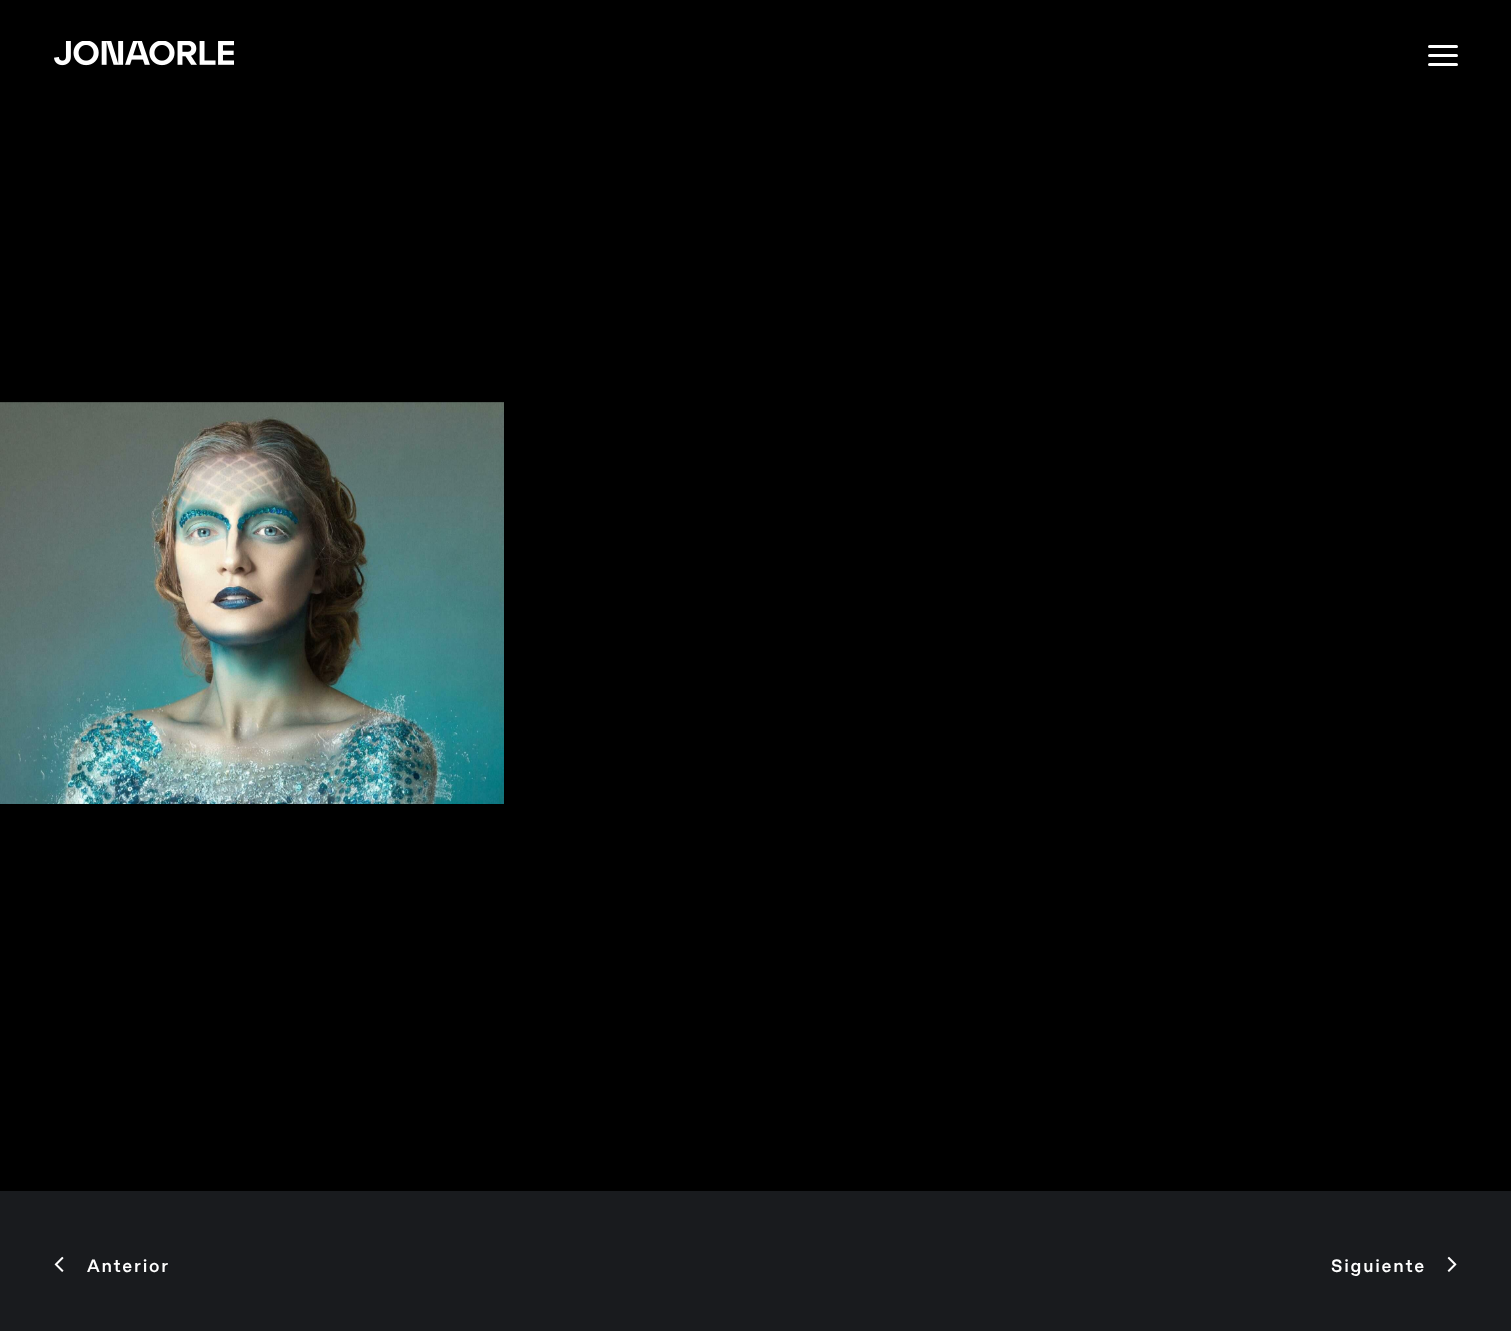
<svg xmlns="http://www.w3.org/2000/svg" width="1511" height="1331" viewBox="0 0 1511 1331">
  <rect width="100%" height="100%" fill="#000"/>
  <image x="54" y="41" width="180" height="25" href="img/1.png"/>
  <rect x="1428" y="54" width="30" height="3" rx="1.5" fill="#fff"/>
  <rect x="1428" y="45" width="30" height="3" rx="1.5" fill="#fff"/>
  <rect x="1428" y="63" width="30" height="3" rx="1.5" fill="#fff"/>
  <image x="0" y="402" width="504" height="402" href="img/2.png"/>
  <path d="M0 1191h1511v140H0z" fill="#191b1e"/>
  <image x="54" y="1256" width="10" height="16" href="img/3.png"/>
  <image x="1447" y="1256" width="10" height="16" href="img/4.png"/>
  <g font-family="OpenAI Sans" font-size="18" font-weight="600" letter-spacing="1.75" fill="#fff">
    <text x="87" y="1272">Anterior</text>
    <text x="1331" y="1272">Siguiente</text>
  </g>
</svg>
